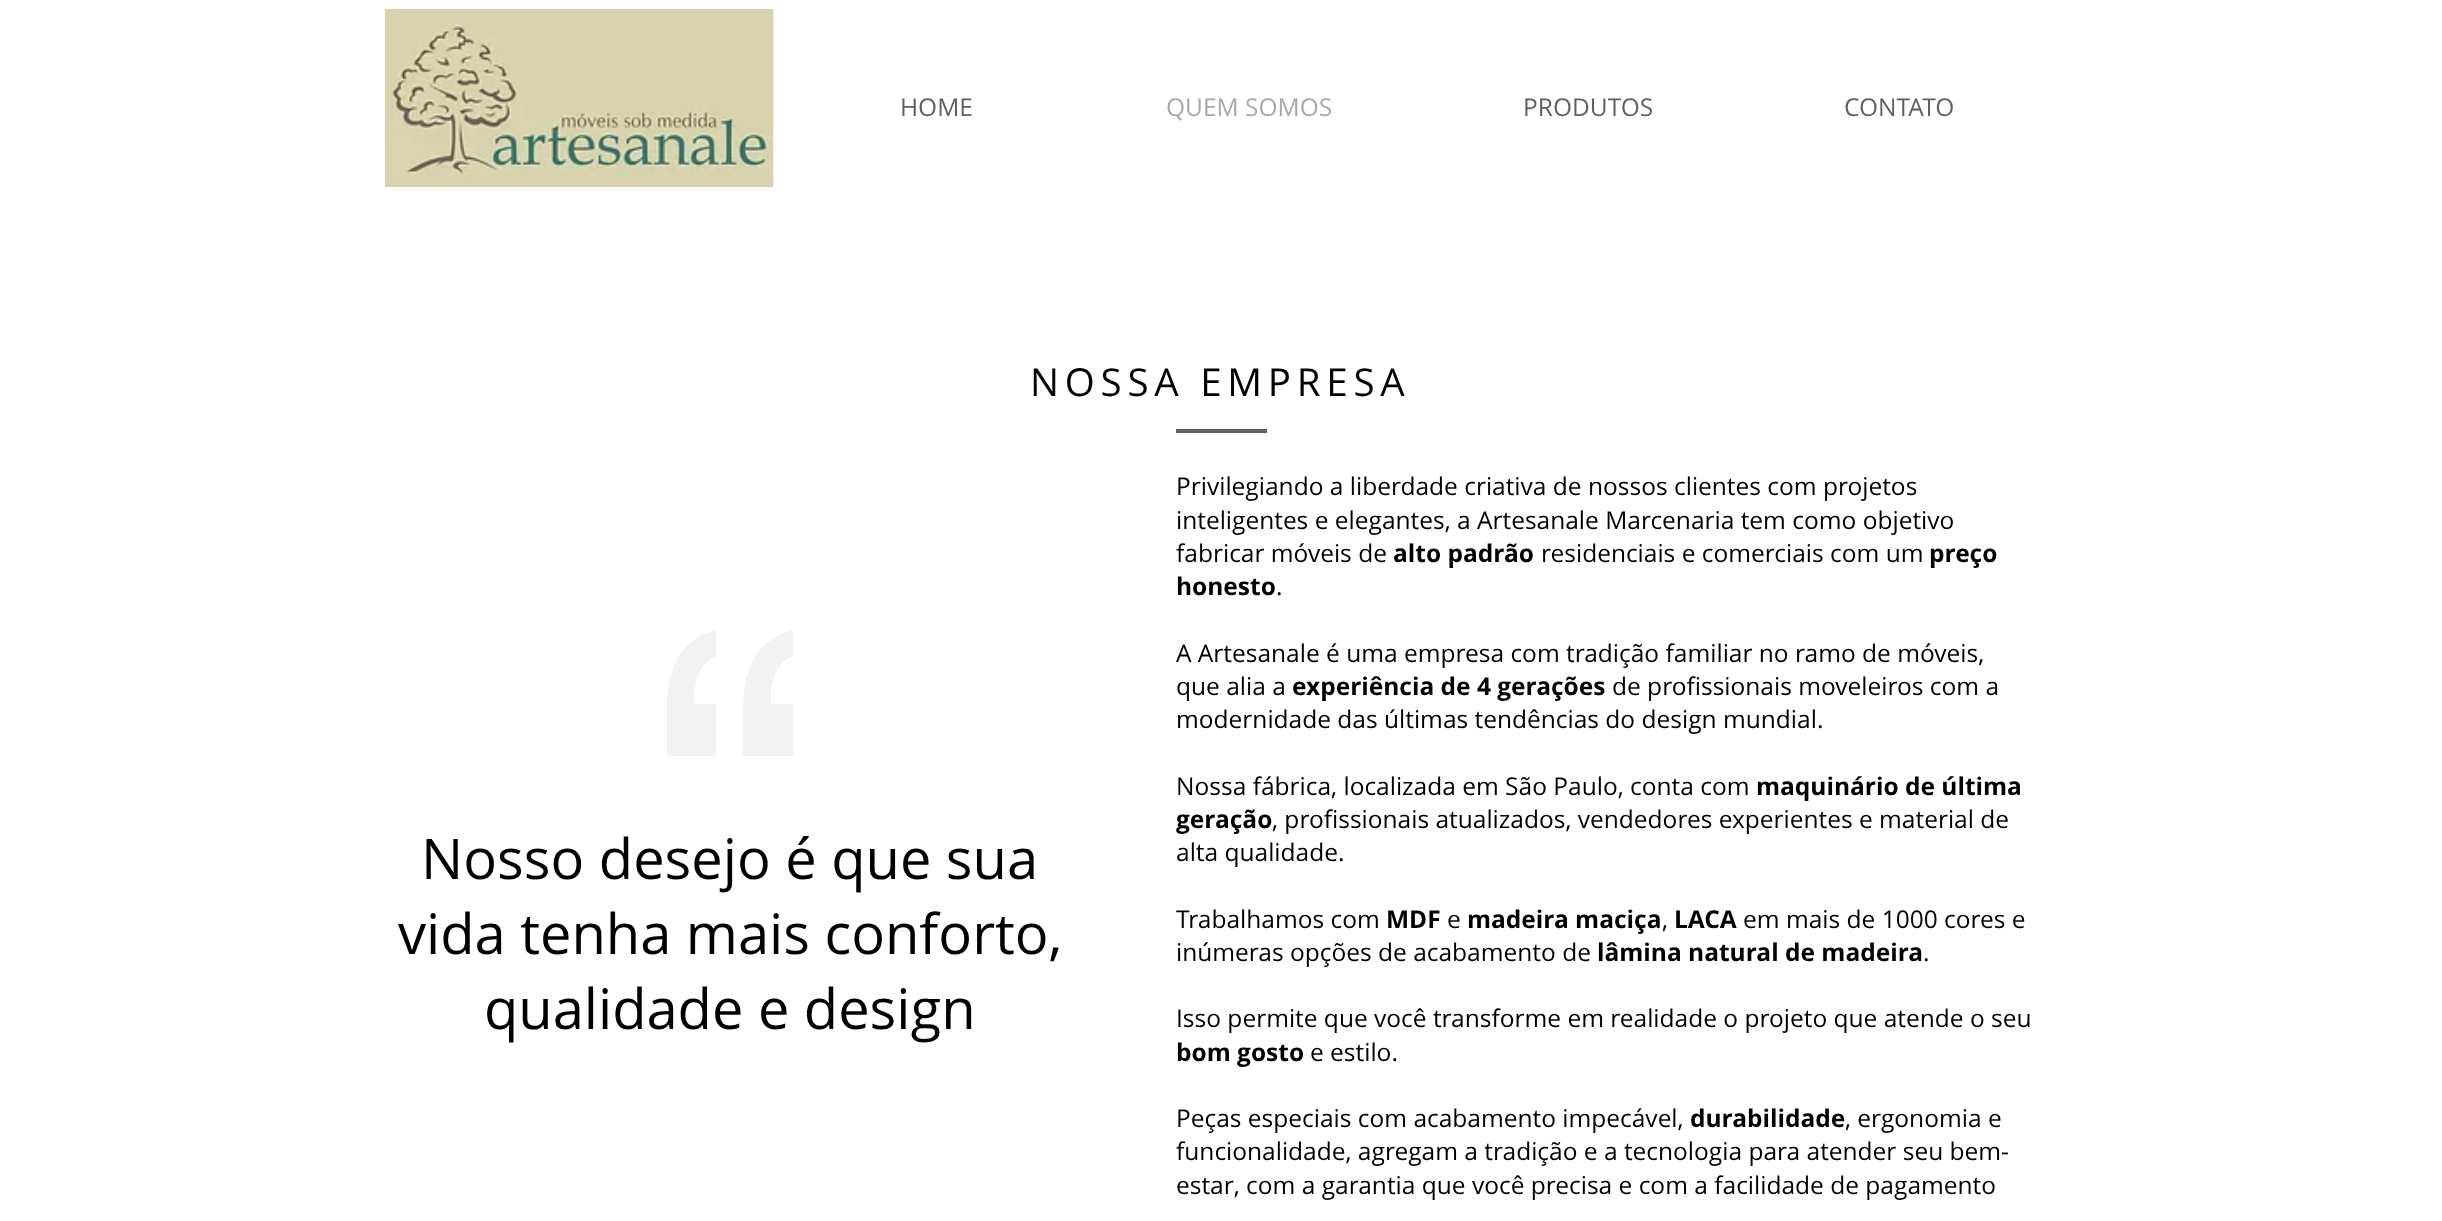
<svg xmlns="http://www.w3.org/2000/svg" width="2442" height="1221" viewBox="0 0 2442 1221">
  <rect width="100%" height="100%" fill="#fff"/>
  <image x="385" y="8" width="389" height="180" href="img/1.png"/>
  <path d="M1176 429h91v4H1176z" fill="#606060"/>
  <path d="M667 756V708C667 665 682 639 716 630V656C700 663 694 678 694 704H716V756Z" fill="#f2f2f2"/>
  <path d="M743 756V708C743 665 759 639 793 630V656C777 663 770 678 771 704H793V756Z" fill="#f2f2f2"/>
  <text x="900" y="116" font-family="Open Sans" font-size="24.5" fill="#606060">HOME</text>
  <text x="1166" y="116" font-family="Open Sans" font-size="24.5" fill="#a8a8a8">QUEM SOMOS</text>
  <g font-family="Open Sans" font-size="24.5" fill="#606060">
    <text x="1523" y="116">PRODUTOS</text>
    <text x="1844" y="116">CONTATO</text>
  </g>
  <text x="1030" y="396" font-family="Open Sans" font-size="38.5" letter-spacing="5.75" fill="#000">NOSSA EMPRESA</text>
  <g font-family="Open Sans" font-size="24.5" fill="#000">
    <text x="1176" y="495">Privilegiando a liberdade criativa de nossos clientes com projetos</text>
    <text x="1176" y="529">inteligentes e elegantes, a Artesanale Marcenaria tem como objetivo</text>
    <text x="1176" y="562">fabricar móveis de</text>
  </g>
  <text x="1393" y="562" font-family="Open Sans" font-size="24.5" font-weight="bold" fill="#000">alto padrão</text>
  <text x="1541" y="562" font-family="Open Sans" font-size="24.5" fill="#000">residenciais e comerciais com um</text>
  <g font-family="Open Sans" font-size="24.5" font-weight="bold" fill="#000">
    <text x="1929" y="562">preço</text>
    <text x="1176" y="595">honesto</text>
  </g>
  <g font-family="Open Sans" font-size="24.5" fill="#000">
    <text x="1276" y="595">.</text>
    <text x="1176" y="662">A Artesanale é uma empresa com tradição familiar no ramo de móveis,</text>
    <text x="1176" y="695">que alia a</text>
  </g>
  <text x="1292" y="695" font-family="Open Sans" font-size="24.5" font-weight="bold" fill="#000">experiência de 4 gerações</text>
  <g font-family="Open Sans" font-size="24.5" fill="#000">
    <text x="1612" y="695">de profissionais moveleiros com a</text>
    <text x="1176" y="728">modernidade das últimas tendências do design mundial.</text>
    <text x="1176" y="795">Nossa fábrica, localizada em São Paulo, conta com</text>
  </g>
  <g font-family="Open Sans" font-size="24.5" font-weight="bold" fill="#000">
    <text x="1756" y="795">maquinário de última</text>
    <text x="1176" y="828">geração</text>
  </g>
  <g font-family="Open Sans" font-size="24.5" fill="#000">
    <text x="1272" y="828">, profissionais atualizados, vendedores experientes e material de</text>
    <text x="1176" y="861">alta qualidade.</text>
    <text x="1176" y="928">Trabalhamos com</text>
  </g>
  <text x="1386" y="928" font-family="Open Sans" font-size="24.5" font-weight="bold" fill="#000">MDF</text>
  <text x="1447" y="928" font-family="Open Sans" font-size="24.5" fill="#000">e</text>
  <text x="1467" y="928" font-family="Open Sans" font-size="24.5" font-weight="bold" fill="#000">madeira maciça</text>
  <text x="1662" y="928" font-family="Open Sans" font-size="24.5" fill="#000">,</text>
  <text x="1674" y="928" font-family="Open Sans" font-size="24.5" font-weight="bold" fill="#000">LACA</text>
  <g font-family="Open Sans" font-size="24.5" fill="#000">
    <text x="1743" y="928">em mais de 1000 cores e</text>
    <text x="1176" y="961">inúmeras opções de acabamento de</text>
  </g>
  <text x="1597" y="961" font-family="Open Sans" font-size="24.5" font-weight="bold" fill="#000">lâmina natural de madeira</text>
  <g font-family="Open Sans" font-size="24.5" fill="#000">
    <text x="1923" y="961">.</text>
    <text x="1176" y="1027">Isso permite que você transforme em realidade o projeto que atende o seu</text>
  </g>
  <text x="1176" y="1061" font-family="Open Sans" font-size="24.5" font-weight="bold" fill="#000">bom gosto</text>
  <g font-family="Open Sans" font-size="24.5" fill="#000">
    <text x="1310" y="1061">e estilo.</text>
    <text x="1176" y="1127">Peças especiais com acabamento impecável,</text>
  </g>
  <text x="1690" y="1127" font-family="Open Sans" font-size="24.5" font-weight="bold" fill="#000">durabilidade</text>
  <g font-family="Open Sans" font-size="24.5" fill="#000">
    <text x="1845" y="1127">, ergonomia e</text>
    <text x="1176" y="1160">funcionalidade, agregam a tradição e a tecnologia para atender seu bem-</text>
    <text x="1176" y="1194">estar, com a garantia que você precisa e com a facilidade de pagamento</text>
  </g>
  <g font-family="Open Sans" font-size="56" fill="#000">
    <text x="421" y="879">Nosso desejo é que sua</text>
    <text x="398" y="954">vida tenha mais conforto,</text>
    <text x="484" y="1029">qualidade e design</text>
  </g>
</svg>
